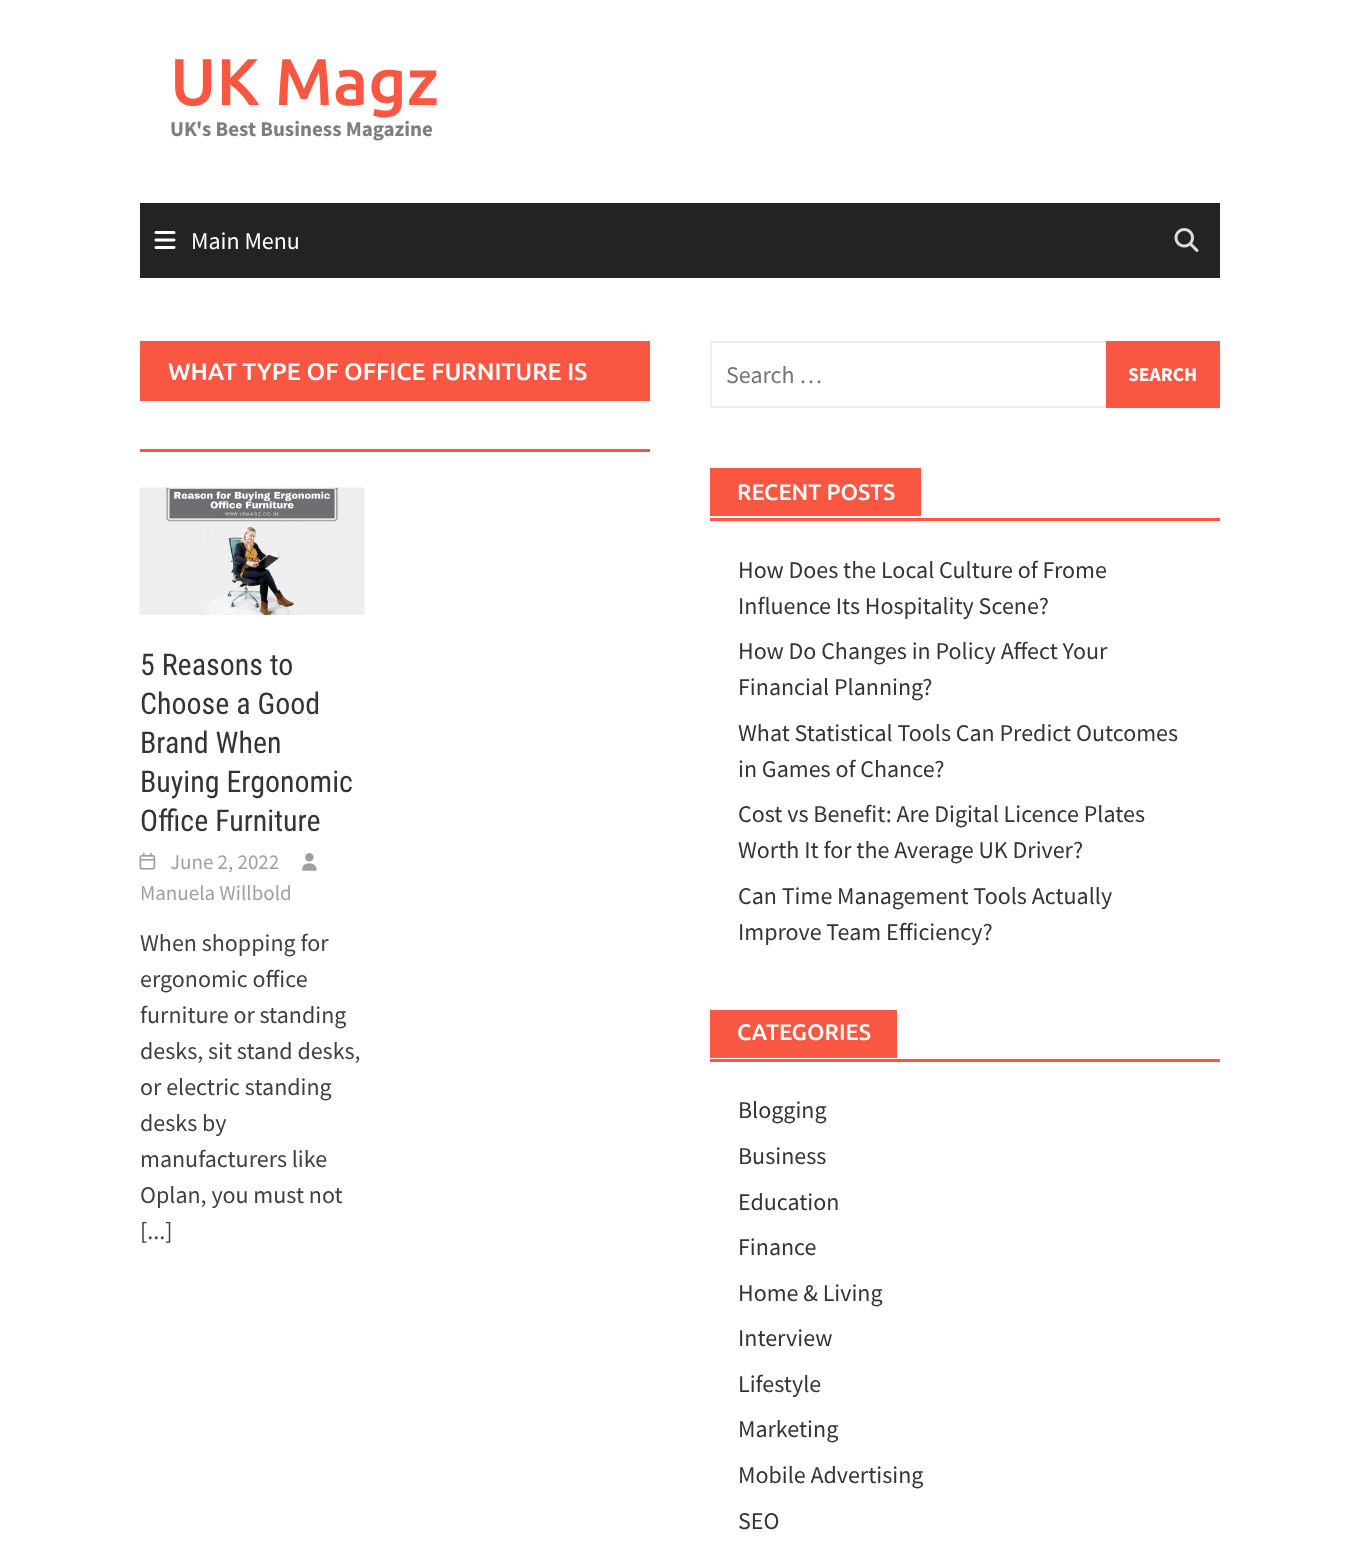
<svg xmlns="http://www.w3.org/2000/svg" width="1358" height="1567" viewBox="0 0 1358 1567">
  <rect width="100%" height="100%" fill="#fff"/>
  <path d="M140 203h1080v75H140z" fill="#232323"/>
  <image x="154" y="231" width="22" height="18" href="img/1.png"/>
  <image x="1174" y="228" width="25" height="24" href="img/2.png"/>
  <path d="M140 449h510v3H140z" fill="#fa5742"/>
  <path d="M140 341h510v60H140z" fill="#fa5742"/>
  <image x="139" y="487" width="226" height="128" href="img/3.png"/>
  <image x="139" y="852" width="17" height="18" href="img/4.png"/>
  <image x="302" y="853" width="15" height="18" href="img/5.png"/>
  <path d="M711 342h508v65H711z" fill="none" stroke="#eee" stroke-width="2"/>
  <path d="M1106 341h114v67H1106z" fill="#fa5742"/>
  <path d="M710 518h510v3H710z" fill="#fa5742"/>
  <path d="M710 468h211v48H710z" fill="#fa5742"/>
  <path d="M710 1059h510v3H710z" fill="#fa5742"/>
  <path d="M710 1010h187v48H710z" fill="#fa5742"/>
  <text x="170" y="105" font-family="Ubuntu" font-size="66" font-weight="500" fill="#fa5742">UK Magz</text>
  <text x="170" y="136" font-family="Source Sans Pro" font-size="21" font-weight="bold" fill="#7e7e7e">UK's Best Business Magazine</text>
  <text x="191" y="249" font-family="Source Sans Pro" font-size="24" fill="#fff">Main Menu</text>
  <text x="168" y="380" font-family="Ubuntu" font-size="24" font-weight="500" fill="#fff">WHAT TYPE OF OFFICE FURNITURE IS</text>
  <g font-family="Roboto Condensed" font-size="30" fill="#353434">
    <text x="140" y="675">5 Reasons to</text>
    <text x="140" y="714">Choose a Good</text>
    <text x="140" y="753">Brand When</text>
    <text x="140" y="792">Buying Ergonomic</text>
    <text x="140" y="831">Office Furniture</text>
  </g>
  <g font-family="Source Sans Pro" font-size="21" fill="#9f9f9f">
    <text x="170" y="869">June 2, 2022</text>
    <text x="140" y="900">Manuela Willbold</text>
  </g>
  <g font-family="Source Sans Pro" font-size="24" fill="#404040">
    <text x="140" y="951">When shopping for</text>
    <text x="140" y="987">ergonomic office</text>
    <text x="140" y="1023">furniture or standing</text>
    <text x="140" y="1059">desks, sit stand desks,</text>
    <text x="140" y="1095">or electric standing</text>
    <text x="140" y="1131">desks by</text>
    <text x="140" y="1167">manufacturers like</text>
    <text x="140" y="1203">Oplan, you must not</text>
    <text x="140" y="1239">[...]</text>
  </g>
  <text x="726" y="383" font-family="Source Sans Pro" font-size="24" fill="#757575">Search …</text>
  <text x="1128" y="381" font-family="Source Sans Pro" font-size="19.5" font-weight="bold" fill="#fff">SEARCH</text>
  <text x="737" y="500" font-family="Ubuntu" font-size="22.5" font-weight="500" fill="#fff">RECENT POSTS</text>
  <g font-family="Source Sans Pro" font-size="24" fill="#353434">
    <text x="738" y="578">How Does the Local Culture of Frome</text>
    <text x="738" y="614">Influence Its Hospitality Scene?</text>
    <text x="738" y="659">How Do Changes in Policy Affect Your</text>
    <text x="738" y="695">Financial Planning?</text>
    <text x="738" y="741">What Statistical Tools Can Predict Outcomes</text>
    <text x="738" y="777">in Games of Chance?</text>
    <text x="738" y="822">Cost vs Benefit: Are Digital Licence Plates</text>
    <text x="738" y="858">Worth It for the Average UK Driver?</text>
    <text x="738" y="904">Can Time Management Tools Actually</text>
    <text x="738" y="940">Improve Team Efficiency?</text>
  </g>
  <text x="737" y="1040" font-family="Ubuntu" font-size="22.5" font-weight="500" fill="#fff">CATEGORIES</text>
  <g font-family="Source Sans Pro" font-size="24" fill="#353434">
    <text x="738" y="1118">Blogging</text>
    <text x="738" y="1164">Business</text>
    <text x="738" y="1210">Education</text>
    <text x="738" y="1255">Finance</text>
    <text x="738" y="1301">Home &amp; Living</text>
    <text x="738" y="1346">Interview</text>
    <text x="738" y="1392">Lifestyle</text>
    <text x="738" y="1437">Marketing</text>
    <text x="738" y="1483">Mobile Advertising</text>
    <text x="738" y="1529">SEO</text>
  </g>
</svg>
